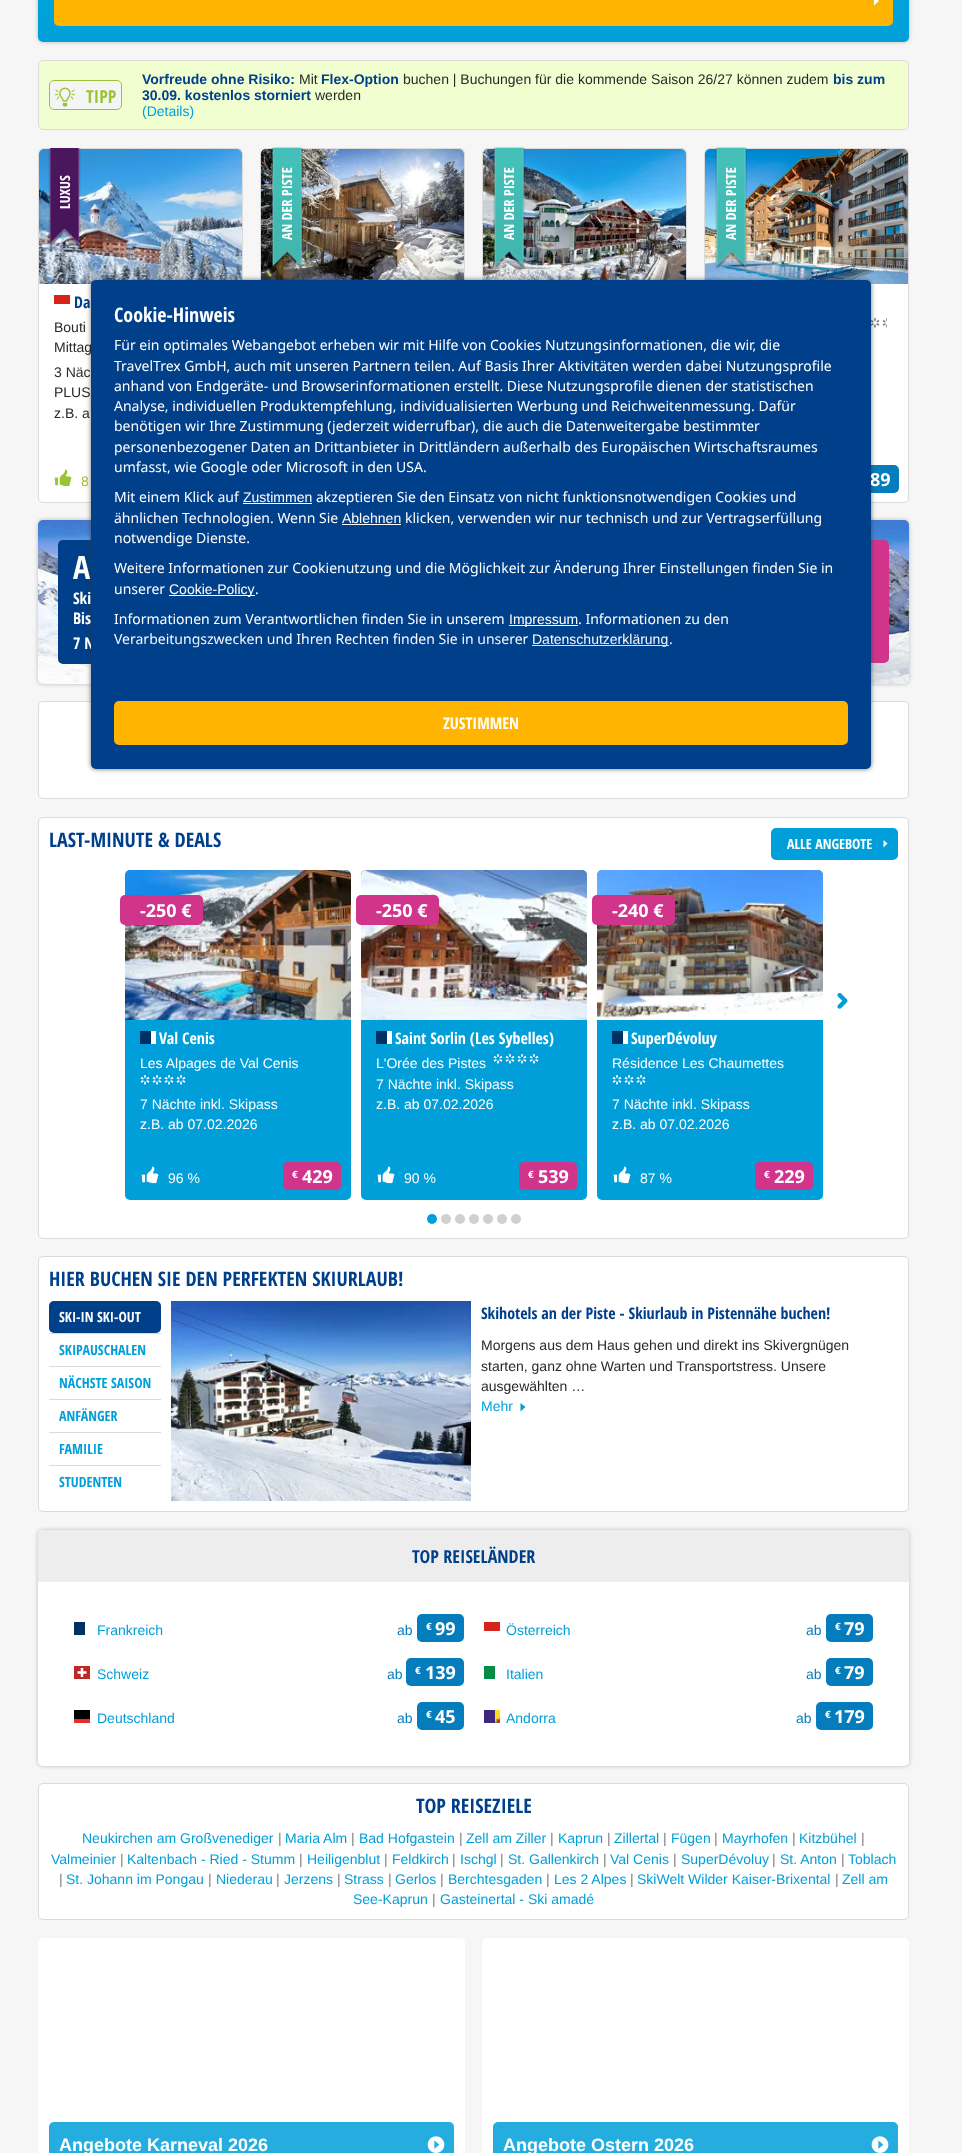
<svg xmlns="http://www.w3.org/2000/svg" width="962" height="2153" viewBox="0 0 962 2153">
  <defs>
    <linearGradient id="g1" gradientUnits="userSpaceOnUse" x1="474" y1="-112" x2="474" y2="42"><stop offset="0" stop-color="#00b1d9"/><stop offset="1" stop-color="#009fd9"/></linearGradient>
    <clipPath id="clip1"><path d="M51 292H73V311H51ZM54 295H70V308H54Z" clip-rule="evenodd"/></clipPath>
    <clipPath id="clip2"><path d="M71 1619H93V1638H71ZM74 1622H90V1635H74Z" clip-rule="evenodd"/></clipPath>
    <clipPath id="clip3"><path d="M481 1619H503V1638H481ZM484 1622H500V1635H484Z" clip-rule="evenodd"/></clipPath>
    <clipPath id="clip4"><path d="M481 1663H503V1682H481ZM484 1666H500V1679H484Z" clip-rule="evenodd"/></clipPath>
    <linearGradient id="g2" gradientUnits="userSpaceOnUse" x1="481" y1="639" x2="481" y2="679"><stop offset="0" stop-color="#003f8a" stop-opacity="0"/><stop offset="1" stop-color="#003f8a"/></linearGradient>
  </defs>
  <rect width="100%" height="100%" fill="#f6f6f6"/>
  <rect x="38" y="-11" width="871" height="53" rx="5" fill="#3333334d" filter="blur(2px)"/>
  <rect x="38" y="-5" width="871" height="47" rx="5" fill="url(#g1)"/>
  <rect x="54" y="-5" width="839" height="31" rx="5" fill="#ffb500"/>
  <image x="873" y="0" width="6" height="6" href="img/1.png"/>
  <rect x="38.5" y="60.5" width="870" height="69" rx="4.5" fill="#f1ffd0" stroke="#dbdbdb"/>
  <rect x="49.5" y="80.5" width="72" height="29" rx="4.5" fill="#f5f5f5" stroke="#9ac433"/>
  <image x="55" y="87" width="20" height="20" href="img/2.png"/>
  <rect x="38.5" y="148.5" width="204" height="354" rx="4.5" fill="#fff" stroke="#dbdbdb"/>
  <image x="39" y="149" width="203" height="135" href="img/3.png"/>
  <image x="48" y="148" width="33" height="99" href="img/4.png"/>
  <g clip-path="url(#clip1)">
    <path d="M54 295h16v13H54z" fill="#333333b3" filter="blur(0.5px)"/>
  </g>
  <path d="M54 295h16v9H54z" fill="#d7241b"/>
  <image x="54" y="469" width="18" height="18" href="img/5.png"/>
  <rect x="260.5" y="148.5" width="204" height="354" rx="4.5" fill="#fff" stroke="#dbdbdb"/>
  <image x="261" y="149" width="203" height="131" href="img/6.png"/>
  <image x="271" y="147" width="32" height="122" href="img/7.png"/>
  <rect x="482.5" y="148.5" width="204" height="354" rx="4.5" fill="#fff" stroke="#dbdbdb"/>
  <image x="483" y="149" width="203" height="131" href="img/8.png"/>
  <image x="493" y="147" width="32" height="123" href="img/9.png"/>
  <rect x="704.5" y="148.5" width="204" height="354" rx="4.5" fill="#fff" stroke="#dbdbdb"/>
  <image x="705" y="149" width="203" height="135" href="img/10.png"/>
  <image x="715" y="147" width="32" height="123" href="img/11.png"/>
  <image x="871" y="318" width="16" height="10" href="img/12.png"/>
  <rect x="842" y="465" width="57" height="28" rx="5" fill="#057dbc"/>
  <rect x="38" y="520" width="871" height="164" rx="5" fill="#3333334d" filter="blur(2px)"/>
  <image x="38" y="520" width="871" height="164" href="img/13.png"/>
  <rect x="58" y="540" width="283" height="124" rx="5" fill="#003f8a"/>
  <rect x="687" y="540" width="202" height="123" rx="5" fill="#d1348b"/>
  <rect x="38.5" y="701.5" width="870" height="97" rx="4.5" fill="#fff" stroke="#dbdbdb"/>
  <rect x="38.5" y="817.5" width="870" height="421" rx="4.5" fill="#fff" stroke="#dbdbdb"/>
  <rect x="771" y="828" width="127" height="32" rx="5" fill="#009fd9"/>
  <path d="M883.5 847.5L887.5 843.5L883.5 840Z" fill="#fff"/>
  <rect x="125" y="870" width="226" height="330" rx="5" fill="#009fd9"/>
  <image x="125" y="870" width="226" height="150" href="img/14.png"/>
  <rect x="120" y="895" width="83" height="30" rx="5" fill="#d1348b"/>
  <path d="M140 1031h16v13H140z" fill="#333333b3" filter="blur(0.5px)"/>
  <path d="M140 1031h11v13H140z" fill="#003165"/>
  <path d="M151 1031h5v13H151z" fill="#fff"/>
  <image x="140" y="1075" width="46" height="10" href="img/15.png"/>
  <image x="141" y="1166" width="18" height="18" href="img/16.png"/>
  <rect x="283" y="1162" width="58" height="28" rx="5" fill="#d1348b"/>
  <rect x="361" y="870" width="226" height="330" rx="5" fill="#009fd9"/>
  <image x="361" y="870" width="226" height="150" href="img/17.png"/>
  <rect x="356" y="895" width="83" height="30" rx="5" fill="#d1348b"/>
  <path d="M376 1031h16v13H376z" fill="#333333b3" filter="blur(0.5px)"/>
  <path d="M376 1031h11v13H376z" fill="#003165"/>
  <path d="M387 1031h5v13H387z" fill="#fff"/>
  <image x="493" y="1054" width="46" height="10" href="img/15.png"/>
  <image x="377" y="1166" width="18" height="18" href="img/16.png"/>
  <rect x="519" y="1162" width="58" height="28" rx="5" fill="#d1348b"/>
  <rect x="597" y="870" width="226" height="330" rx="5" fill="#009fd9"/>
  <image x="597" y="870" width="226" height="150" href="img/18.png"/>
  <rect x="592" y="895" width="83" height="30" rx="5" fill="#d1348b"/>
  <path d="M612 1031h16v13H612z" fill="#333333b3" filter="blur(0.5px)"/>
  <path d="M612 1031h11v13H612z" fill="#003165"/>
  <path d="M623 1031h5v13H623z" fill="#fff"/>
  <image x="612" y="1075" width="34" height="10" href="img/19.png"/>
  <image x="613" y="1166" width="18" height="18" href="img/16.png"/>
  <rect x="755" y="1162" width="58" height="28" rx="5" fill="#d1348b"/>
  <image x="837" y="992" width="11" height="17" href="img/20.png"/>
  <circle cx="432" cy="1219" r="5" fill="#009fd9"/>
  <circle cx="446" cy="1219" r="5" fill="#d0d0d0"/>
  <circle cx="460" cy="1219" r="5" fill="#d0d0d0"/>
  <circle cx="474" cy="1219" r="5" fill="#d0d0d0"/>
  <circle cx="488" cy="1219" r="5" fill="#d0d0d0"/>
  <circle cx="502" cy="1219" r="5" fill="#d0d0d0"/>
  <circle cx="516" cy="1219" r="5" fill="#d0d0d0"/>
  <rect x="38.5" y="1256.5" width="870" height="255" rx="4.5" fill="#fff" stroke="#dbdbdb"/>
  <rect x="49" y="1301" width="112" height="32" rx="5" fill="#003f8a"/>
  <path d="M49 1333h112v1H49z" fill="#dbdbdb"/>
  <path d="M49 1366h112v1H49z" fill="#dbdbdb"/>
  <path d="M49 1399h112v1H49z" fill="#dbdbdb"/>
  <path d="M49 1432h112v1H49z" fill="#dbdbdb"/>
  <path d="M49 1465h112v1H49z" fill="#dbdbdb"/>
  <image x="171" y="1301" width="300" height="200" href="img/21.png"/>
  <path d="M520.5 1411.5L525.5 1407L520.5 1403Z" fill="#009fd9"/>
  <rect x="38" y="1530" width="871" height="236" rx="5" fill="#3333334d" filter="blur(2px)"/>
  <rect x="38" y="1530" width="871" height="236" rx="5" fill="#fff"/>
  <path d="M43 1530H904C907 1530 909 1532 909 1535V1582H38V1535C38 1532 40 1530 43 1530Z" fill="#ededed"/>
  <g clip-path="url(#clip2)">
    <path d="M74 1622h16v13H74z" fill="#333333b3" filter="blur(0.5px)"/>
  </g>
  <path d="M74 1622h11v13H74z" fill="#003165"/>
  <rect x="417" y="1614" width="47" height="28" rx="5" fill="#057dbc"/>
  <g clip-path="url(#clip3)">
    <path d="M484 1622h16v13H484z" fill="#333333b3" filter="blur(0.5px)"/>
  </g>
  <path d="M484 1622h16v9H484z" fill="#d7241b"/>
  <rect x="826" y="1614" width="47" height="28" rx="5" fill="#057dbc"/>
  <path d="M74 1666h16v13H74z" fill="#333333b3" filter="blur(0.5px)"/>
  <image x="74" y="1666" width="16" height="13" href="img/22.png"/>
  <rect x="406" y="1658" width="58" height="28" rx="5" fill="#057dbc"/>
  <g clip-path="url(#clip4)">
    <path d="M484 1666h16v13H484z" fill="#333333b3" filter="blur(0.5px)"/>
  </g>
  <path d="M484 1666h11v13H484z" fill="#038d46"/>
  <rect x="826" y="1658" width="47" height="28" rx="5" fill="#057dbc"/>
  <path d="M74 1710h16v13H74z" fill="#333333b3" filter="blur(0.5px)"/>
  <path d="M74 1719h16v4H74z" fill="#e42d2d"/>
  <path d="M74 1710h16v9H74z" fill="#000"/>
  <rect x="417" y="1702" width="47" height="28" rx="5" fill="#057dbc"/>
  <path d="M484 1710h16v13H484z" fill="#333333b3" filter="blur(0.5px)"/>
  <image x="484" y="1710" width="16" height="13" href="img/23.png"/>
  <rect x="816" y="1702" width="57" height="28" rx="5" fill="#057dbc"/>
  <rect x="38.5" y="1783.5" width="870" height="136" rx="4.5" fill="#fff" stroke="#dbdbdb"/>
  <rect x="38" y="1938" width="427" height="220" rx="5" fill="#fff"/>
  <rect x="49" y="2122" width="405" height="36" rx="5" fill="#26addf"/>
  <image x="427" y="2136" width="18" height="17" href="img/24.png"/>
  <rect x="482" y="1938" width="427" height="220" rx="5" fill="#fff"/>
  <rect x="493" y="2122" width="405" height="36" rx="5" fill="#26addf"/>
  <image x="871" y="2136" width="18" height="17" href="img/24.png"/>
  <rect x="91" y="280" width="780" height="489" rx="5" fill="#333333b3" filter="blur(2.5px)"/>
  <text x="86" y="103" font-family="Open Sans Condensed" font-size="18" font-weight="bold" fill="#9ac433">TIPP</text>
  <text x="142" y="84" font-family="Liberation Sans" font-size="14" font-weight="bold" fill="#003f8a">Vorfreude ohne Risiko:</text>
  <text x="299" y="84" font-family="Liberation Sans" font-size="14" fill="#292929">Mit</text>
  <text x="321" y="84" font-family="Liberation Sans" font-size="14" font-weight="bold" fill="#003f8a">Flex-Option</text>
  <text x="403" y="84" font-family="Liberation Sans" font-size="14" fill="#292929">buchen | Buchungen für die kommende Saison 26/27 können zudem</text>
  <g font-family="Liberation Sans" font-size="14" font-weight="bold" fill="#003f8a">
    <text x="833" y="84">bis zum</text>
    <text x="142" y="100">30.09. kostenlos storniert</text>
  </g>
  <text x="315" y="100" font-family="Liberation Sans" font-size="14" fill="#292929">werden</text>
  <text x="142" y="116" font-family="Liberation Sans" font-size="14" fill="#009fd9">(Details)</text>
  <text x="70" y="209" transform="rotate(-90 70 209)" font-family="Open Sans Condensed" font-size="14" font-weight="bold" fill="#fff">LUXUS</text>
  <text x="74" y="308" font-family="Open Sans Condensed" font-size="16" font-weight="bold" fill="#003f8a">Da</text>
  <g font-family="Liberation Sans" font-size="14" fill="#292929">
    <text x="54" y="332">Bouti</text>
    <text x="54" y="352">Mittag</text>
    <text x="54" y="377">3 Näc</text>
    <text x="54" y="397">PLUS</text>
    <text x="54" y="418">z.B. a</text>
  </g>
  <text x="81" y="486" font-family="Liberation Sans" font-size="14" fill="#9ac433">8</text>
  <g font-family="Open Sans Condensed" font-size="14" font-weight="bold" fill="#fff">
    <text x="292" y="240" transform="rotate(-90 292 240)">AN DER PISTE</text>
    <text x="514" y="240" transform="rotate(-90 514 240)">AN DER PISTE</text>
    <text x="736" y="240" transform="rotate(-90 736 240)">AN DER PISTE</text>
  </g>
  <text x="870" y="486" font-family="Open Sans" font-size="18" font-weight="bold" fill="#fff">89</text>
  <text x="73" y="579" font-family="Open Sans Condensed" font-size="32" font-weight="bold" fill="#fff">A</text>
  <g font-family="Open Sans Condensed" font-size="16" font-weight="bold" fill="#fff">
    <text x="73" y="604">Ski</text>
    <text x="73" y="624">Bis</text>
    <text x="73" y="649">7 N</text>
  </g>
  <text x="49" y="847" font-family="Open Sans Condensed" font-size="20" font-weight="bold" fill="#003f8a">LAST-MINUTE &amp; DEALS</text>
  <text x="787" y="849" font-family="Open Sans Condensed" font-size="14" font-weight="bold" fill="#fff">ALLE ANGEBOTE</text>
  <text x="140" y="917" font-family="Open Sans" font-size="18" font-weight="bold" fill="#fff">-250 €</text>
  <text x="159" y="1044" font-family="Open Sans Condensed" font-size="16" font-weight="bold" fill="#fff">Val Cenis</text>
  <g font-family="Liberation Sans" font-size="14" fill="#fff">
    <text x="140" y="1068">Les Alpages de Val Cenis</text>
    <text x="140" y="1109">7 Nächte inkl. Skipass</text>
    <text x="140" y="1129">z.B. ab 07.02.2026</text>
    <text x="168" y="1183">96 %</text>
  </g>
  <text x="292" y="1178" font-family="Open Sans" font-size="10" font-weight="bold" fill="#fff">€</text>
  <g font-family="Open Sans" font-size="18" font-weight="bold" fill="#fff">
    <text x="302" y="1183">429</text>
    <text x="376" y="917">-250 €</text>
  </g>
  <text x="395" y="1044" font-family="Open Sans Condensed" font-size="16" font-weight="bold" fill="#fff">Saint Sorlin (Les Sybelles)</text>
  <g font-family="Liberation Sans" font-size="14" fill="#fff">
    <text x="376" y="1068">L'Orée des Pistes</text>
    <text x="376" y="1089">7 Nächte inkl. Skipass</text>
    <text x="376" y="1109">z.B. ab 07.02.2026</text>
    <text x="404" y="1183">90 %</text>
  </g>
  <text x="528" y="1178" font-family="Open Sans" font-size="10" font-weight="bold" fill="#fff">€</text>
  <g font-family="Open Sans" font-size="18" font-weight="bold" fill="#fff">
    <text x="538" y="1183">539</text>
    <text x="612" y="917">-240 €</text>
  </g>
  <text x="631" y="1044" font-family="Open Sans Condensed" font-size="16" font-weight="bold" fill="#fff">SuperDévoluy</text>
  <g font-family="Liberation Sans" font-size="14" fill="#fff">
    <text x="612" y="1068">Résidence Les Chaumettes</text>
    <text x="612" y="1109">7 Nächte inkl. Skipass</text>
    <text x="612" y="1129">z.B. ab 07.02.2026</text>
    <text x="640" y="1183">87 %</text>
  </g>
  <text x="764" y="1178" font-family="Open Sans" font-size="10" font-weight="bold" fill="#fff">€</text>
  <text x="774" y="1183" font-family="Open Sans" font-size="18" font-weight="bold" fill="#fff">229</text>
  <text x="49" y="1286" font-family="Open Sans Condensed" font-size="20" font-weight="bold" fill="#003f8a">HIER BUCHEN SIE DEN PERFEKTEN SKIURLAUB!</text>
  <text x="59" y="1322" font-family="Open Sans Condensed" font-size="14" font-weight="bold" fill="#fff">SKI-IN SKI-OUT</text>
  <g font-family="Open Sans Condensed" font-size="14" font-weight="bold" fill="#009fd9">
    <text x="59" y="1355">SKIPAUSCHALEN</text>
    <text x="59" y="1388">NÄCHSTE SAISON</text>
    <text x="59" y="1421">ANFÄNGER</text>
    <text x="59" y="1454">FAMILIE</text>
    <text x="59" y="1487">STUDENTEN</text>
  </g>
  <text x="481" y="1319" font-family="Open Sans Condensed" font-size="16" font-weight="bold" fill="#003f8a">Skihotels an der Piste - Skiurlaub in Pistennähe buchen!</text>
  <g font-family="Liberation Sans" font-size="14" fill="#292929">
    <text x="481" y="1350">Morgens aus dem Haus gehen und direkt ins Skivergnügen</text>
    <text x="481" y="1371">starten, ganz ohne Warten und Transportstress. Unsere</text>
    <text x="481" y="1391">ausgewählten …</text>
  </g>
  <text x="481" y="1411" font-family="Liberation Sans" font-size="14" fill="#009fd9">Mehr</text>
  <text x="412" y="1563" font-family="Open Sans Condensed" font-size="18" font-weight="bold" fill="#003f8a">TOP REISELÄNDER</text>
  <text x="97" y="1635" font-family="Liberation Sans" font-size="14" fill="#009fd9">Frankreich</text>
  <text x="397" y="1635" font-family="Liberation Sans" font-size="14" fill="#057dbc">ab</text>
  <text x="426" y="1630" font-family="Open Sans" font-size="10" font-weight="bold" fill="#fff">€</text>
  <text x="435" y="1635" font-family="Open Sans" font-size="18" font-weight="bold" fill="#fff">99</text>
  <text x="506" y="1635" font-family="Liberation Sans" font-size="14" fill="#009fd9">Österreich</text>
  <text x="806" y="1635" font-family="Liberation Sans" font-size="14" fill="#057dbc">ab</text>
  <text x="835" y="1630" font-family="Open Sans" font-size="10" font-weight="bold" fill="#fff">€</text>
  <text x="844" y="1635" font-family="Open Sans" font-size="18" font-weight="bold" fill="#fff">79</text>
  <text x="97" y="1679" font-family="Liberation Sans" font-size="14" fill="#009fd9">Schweiz</text>
  <text x="387" y="1679" font-family="Liberation Sans" font-size="14" fill="#057dbc">ab</text>
  <text x="415" y="1674" font-family="Open Sans" font-size="10" font-weight="bold" fill="#fff">€</text>
  <text x="425" y="1679" font-family="Open Sans" font-size="18" font-weight="bold" fill="#fff">139</text>
  <text x="506" y="1679" font-family="Liberation Sans" font-size="14" fill="#009fd9">Italien</text>
  <text x="806" y="1679" font-family="Liberation Sans" font-size="14" fill="#057dbc">ab</text>
  <text x="835" y="1674" font-family="Open Sans" font-size="10" font-weight="bold" fill="#fff">€</text>
  <text x="844" y="1679" font-family="Open Sans" font-size="18" font-weight="bold" fill="#fff">79</text>
  <text x="97" y="1723" font-family="Liberation Sans" font-size="14" fill="#009fd9">Deutschland</text>
  <text x="397" y="1723" font-family="Liberation Sans" font-size="14" fill="#057dbc">ab</text>
  <text x="426" y="1718" font-family="Open Sans" font-size="10" font-weight="bold" fill="#fff">€</text>
  <text x="435" y="1723" font-family="Open Sans" font-size="18" font-weight="bold" fill="#fff">45</text>
  <text x="506" y="1723" font-family="Liberation Sans" font-size="14" fill="#009fd9">Andorra</text>
  <text x="796" y="1723" font-family="Liberation Sans" font-size="14" fill="#057dbc">ab</text>
  <text x="825" y="1718" font-family="Open Sans" font-size="10" font-weight="bold" fill="#fff">€</text>
  <text x="834" y="1723" font-family="Open Sans" font-size="18" font-weight="bold" fill="#fff">179</text>
  <text x="416" y="1813" font-family="Open Sans Condensed" font-size="20" font-weight="bold" fill="#003f8a">TOP REISEZIELE</text>
  <text x="82" y="1843" font-family="Liberation Sans" font-size="14" fill="#009fd9">Neukirchen am Großvenediger</text>
  <text x="278" y="1843" font-family="Liberation Sans" font-size="14" fill="#808080">|</text>
  <text x="285" y="1843" font-family="Liberation Sans" font-size="14" fill="#009fd9">Maria Alm</text>
  <text x="351" y="1843" font-family="Liberation Sans" font-size="14" fill="#808080">|</text>
  <text x="359" y="1843" font-family="Liberation Sans" font-size="14" fill="#009fd9">Bad Hofgastein</text>
  <text x="459" y="1843" font-family="Liberation Sans" font-size="14" fill="#808080">|</text>
  <text x="466" y="1843" font-family="Liberation Sans" font-size="14" fill="#009fd9">Zell am Ziller</text>
  <text x="550" y="1843" font-family="Liberation Sans" font-size="14" fill="#808080">|</text>
  <text x="558" y="1843" font-family="Liberation Sans" font-size="14" fill="#009fd9">Kaprun</text>
  <text x="607" y="1843" font-family="Liberation Sans" font-size="14" fill="#808080">|</text>
  <text x="614" y="1843" font-family="Liberation Sans" font-size="14" fill="#009fd9">Zillertal</text>
  <text x="663" y="1843" font-family="Liberation Sans" font-size="14" fill="#808080">|</text>
  <text x="671" y="1843" font-family="Liberation Sans" font-size="14" fill="#009fd9">Fügen</text>
  <text x="714" y="1843" font-family="Liberation Sans" font-size="14" fill="#808080">|</text>
  <text x="722" y="1843" font-family="Liberation Sans" font-size="14" fill="#009fd9">Mayrhofen</text>
  <text x="792" y="1843" font-family="Liberation Sans" font-size="14" fill="#808080">|</text>
  <text x="799" y="1843" font-family="Liberation Sans" font-size="14" fill="#009fd9">Kitzbühel</text>
  <text x="861" y="1843" font-family="Liberation Sans" font-size="14" fill="#808080">|</text>
  <text x="51" y="1864" font-family="Liberation Sans" font-size="14" fill="#009fd9">Valmeinier</text>
  <text x="120" y="1864" font-family="Liberation Sans" font-size="14" fill="#808080">|</text>
  <text x="127" y="1864" font-family="Liberation Sans" font-size="14" fill="#009fd9">Kaltenbach - Ried - Stumm</text>
  <text x="299" y="1864" font-family="Liberation Sans" font-size="14" fill="#808080">|</text>
  <text x="307" y="1864" font-family="Liberation Sans" font-size="14" fill="#009fd9">Heiligenblut</text>
  <text x="384" y="1864" font-family="Liberation Sans" font-size="14" fill="#808080">|</text>
  <text x="392" y="1864" font-family="Liberation Sans" font-size="14" fill="#009fd9">Feldkirch</text>
  <text x="452" y="1864" font-family="Liberation Sans" font-size="14" fill="#808080">|</text>
  <text x="460" y="1864" font-family="Liberation Sans" font-size="14" fill="#009fd9">Ischgl</text>
  <text x="500" y="1864" font-family="Liberation Sans" font-size="14" fill="#808080">|</text>
  <text x="508" y="1864" font-family="Liberation Sans" font-size="14" fill="#009fd9">St. Gallenkirch</text>
  <text x="603" y="1864" font-family="Liberation Sans" font-size="14" fill="#808080">|</text>
  <text x="610" y="1864" font-family="Liberation Sans" font-size="14" fill="#009fd9">Val Cenis</text>
  <text x="673" y="1864" font-family="Liberation Sans" font-size="14" fill="#808080">|</text>
  <text x="681" y="1864" font-family="Liberation Sans" font-size="14" fill="#009fd9">SuperDévoluy</text>
  <text x="772" y="1864" font-family="Liberation Sans" font-size="14" fill="#808080">|</text>
  <text x="780" y="1864" font-family="Liberation Sans" font-size="14" fill="#009fd9">St. Anton</text>
  <text x="841" y="1864" font-family="Liberation Sans" font-size="14" fill="#808080">|</text>
  <text x="848" y="1864" font-family="Liberation Sans" font-size="14" fill="#009fd9">Toblach</text>
  <text x="59" y="1884" font-family="Liberation Sans" font-size="14" fill="#808080">|</text>
  <text x="66" y="1884" font-family="Liberation Sans" font-size="14" fill="#009fd9">St. Johann im Pongau</text>
  <text x="208" y="1884" font-family="Liberation Sans" font-size="14" fill="#808080">|</text>
  <text x="216" y="1884" font-family="Liberation Sans" font-size="14" fill="#009fd9">Niederau</text>
  <text x="276" y="1884" font-family="Liberation Sans" font-size="14" fill="#808080">|</text>
  <text x="284" y="1884" font-family="Liberation Sans" font-size="14" fill="#009fd9">Jerzens</text>
  <text x="337" y="1884" font-family="Liberation Sans" font-size="14" fill="#808080">|</text>
  <text x="344" y="1884" font-family="Liberation Sans" font-size="14" fill="#009fd9">Strass</text>
  <text x="388" y="1884" font-family="Liberation Sans" font-size="14" fill="#808080">|</text>
  <text x="395" y="1884" font-family="Liberation Sans" font-size="14" fill="#009fd9">Gerlos</text>
  <text x="440" y="1884" font-family="Liberation Sans" font-size="14" fill="#808080">|</text>
  <text x="448" y="1884" font-family="Liberation Sans" font-size="14" fill="#009fd9">Berchtesgaden</text>
  <text x="546" y="1884" font-family="Liberation Sans" font-size="14" fill="#808080">|</text>
  <text x="554" y="1884" font-family="Liberation Sans" font-size="14" fill="#009fd9">Les 2 Alpes</text>
  <text x="630" y="1884" font-family="Liberation Sans" font-size="14" fill="#808080">|</text>
  <text x="637" y="1884" font-family="Liberation Sans" font-size="14" fill="#009fd9">SkiWelt Wilder Kaiser-Brixental</text>
  <text x="835" y="1884" font-family="Liberation Sans" font-size="14" fill="#808080">|</text>
  <g font-family="Liberation Sans" font-size="14" fill="#009fd9">
    <text x="842" y="1884">Zell am</text>
    <text x="353" y="1904">See-Kaprun</text>
  </g>
  <text x="432" y="1904" font-family="Liberation Sans" font-size="14" fill="#808080">|</text>
  <text x="440" y="1904" font-family="Liberation Sans" font-size="14" fill="#009fd9">Gasteinertal - Ski amadé</text>
  <g font-family="Liberation Sans" font-size="18" font-weight="bold" fill="#fff">
    <text x="59" y="2151">Angebote Karneval 2026</text>
    <text x="503" y="2151">Angebote Ostern 2026</text>
  </g>
  <rect x="91" y="280" width="780" height="489" rx="5" fill="#003f8a"/>
  <text x="114" y="322" font-family="Open Sans Condensed" font-size="20" font-weight="bold" fill="#fff">Cookie-Hinweis</text>
  <g font-family="Noto Sans" font-size="14" fill="#fff">
    <text x="114" y="350">Für ein optimales Webangebot erheben wir mit Hilfe von Cookies Nutzungsinformationen, die wir, die</text>
    <text x="114" y="371">TravelTrex GmbH, auch mit unseren Partnern teilen. Auf Basis Ihrer Aktivitäten werden dabei Nutzungsprofile</text>
    <text x="114" y="391">anhand von Endgeräte- und Browserinformationen erstellt. Diese Nutzungsprofile dienen der statistischen</text>
    <text x="114" y="411">Analyse, individuellen Produktempfehlung, individualisierten Werbung und Reichweitenmessung. Dafür</text>
    <text x="114" y="431">benötigen wir Ihre Zustimmung (jederzeit widerrufbar), die auch die Datenweitergabe bestimmter</text>
    <text x="114" y="452">personenbezogener Daten an Drittanbieter in Drittländern außerhalb des Europäischen Wirtschaftsraumes</text>
    <text x="114" y="472">umfasst, wie Google oder Microsoft in den USA.</text>
    <text x="114" y="502">Mit einem Klick auf</text>
  </g>
  <text x="243" y="502" font-family="Liberation Sans" font-size="14" fill="#fff">Zustimmen</text>
  <path d="M243 503h69v1H243z" fill="#fff"/>
  <g font-family="Noto Sans" font-size="14" fill="#fff">
    <text x="316" y="502">akzeptieren Sie den Einsatz von nicht funktionsnotwendigen Cookies und</text>
    <text x="114" y="523">ähnlichen Technologien. Wenn Sie</text>
  </g>
  <text x="342" y="523" font-family="Liberation Sans" font-size="14" fill="#fff">Ablehnen</text>
  <path d="M342 524h59v1H342z" fill="#fff"/>
  <g font-family="Noto Sans" font-size="14" fill="#fff">
    <text x="405" y="523">klicken, verwenden wir nur technisch und zur Vertragserfüllung</text>
    <text x="114" y="543">notwendige Dienste.</text>
    <text x="114" y="573">Weitere Informationen zur Cookienutzung und die Möglichkeit zur Änderung Ihrer Einstellungen finden Sie in</text>
    <text x="114" y="594">unserer</text>
  </g>
  <path d="M169 595h86v1H169z" fill="#fff"/>
  <text x="169" y="594" font-family="Liberation Sans" font-size="14" fill="#fff">Cookie-Policy</text>
  <g font-family="Noto Sans" font-size="14" fill="#fff">
    <text x="255" y="594">.</text>
    <text x="114" y="624">Informationen zum Verantwortlichen finden Sie in unserem</text>
  </g>
  <path d="M509 625h69v1H509z" fill="#fff"/>
  <text x="509" y="624" font-family="Liberation Sans" font-size="14" fill="#fff">Impressum</text>
  <g font-family="Noto Sans" font-size="14" fill="#fff">
    <text x="578" y="624">. Informationen zu den</text>
    <text x="114" y="644">Verarbeitungszwecken und Ihren Rechten finden Sie in unserer</text>
  </g>
  <path d="M532 645h137v1H532z" fill="#fff"/>
  <text x="532" y="644" font-family="Liberation Sans" font-size="14" fill="#fff">Datenschutzerklärung</text>
  <text x="669" y="644" font-family="Noto Sans" font-size="14" fill="#fff">.</text>
  <path d="M116 640h556v8H116z" fill="url(#g2)"/>
  <rect x="114" y="701" width="734" height="44" rx="5" fill="#ffb500"/>
  <text x="443" y="729" font-family="Open Sans Condensed" font-size="16" font-weight="bold" fill="#fff">ZUSTIMMEN</text>
</svg>
